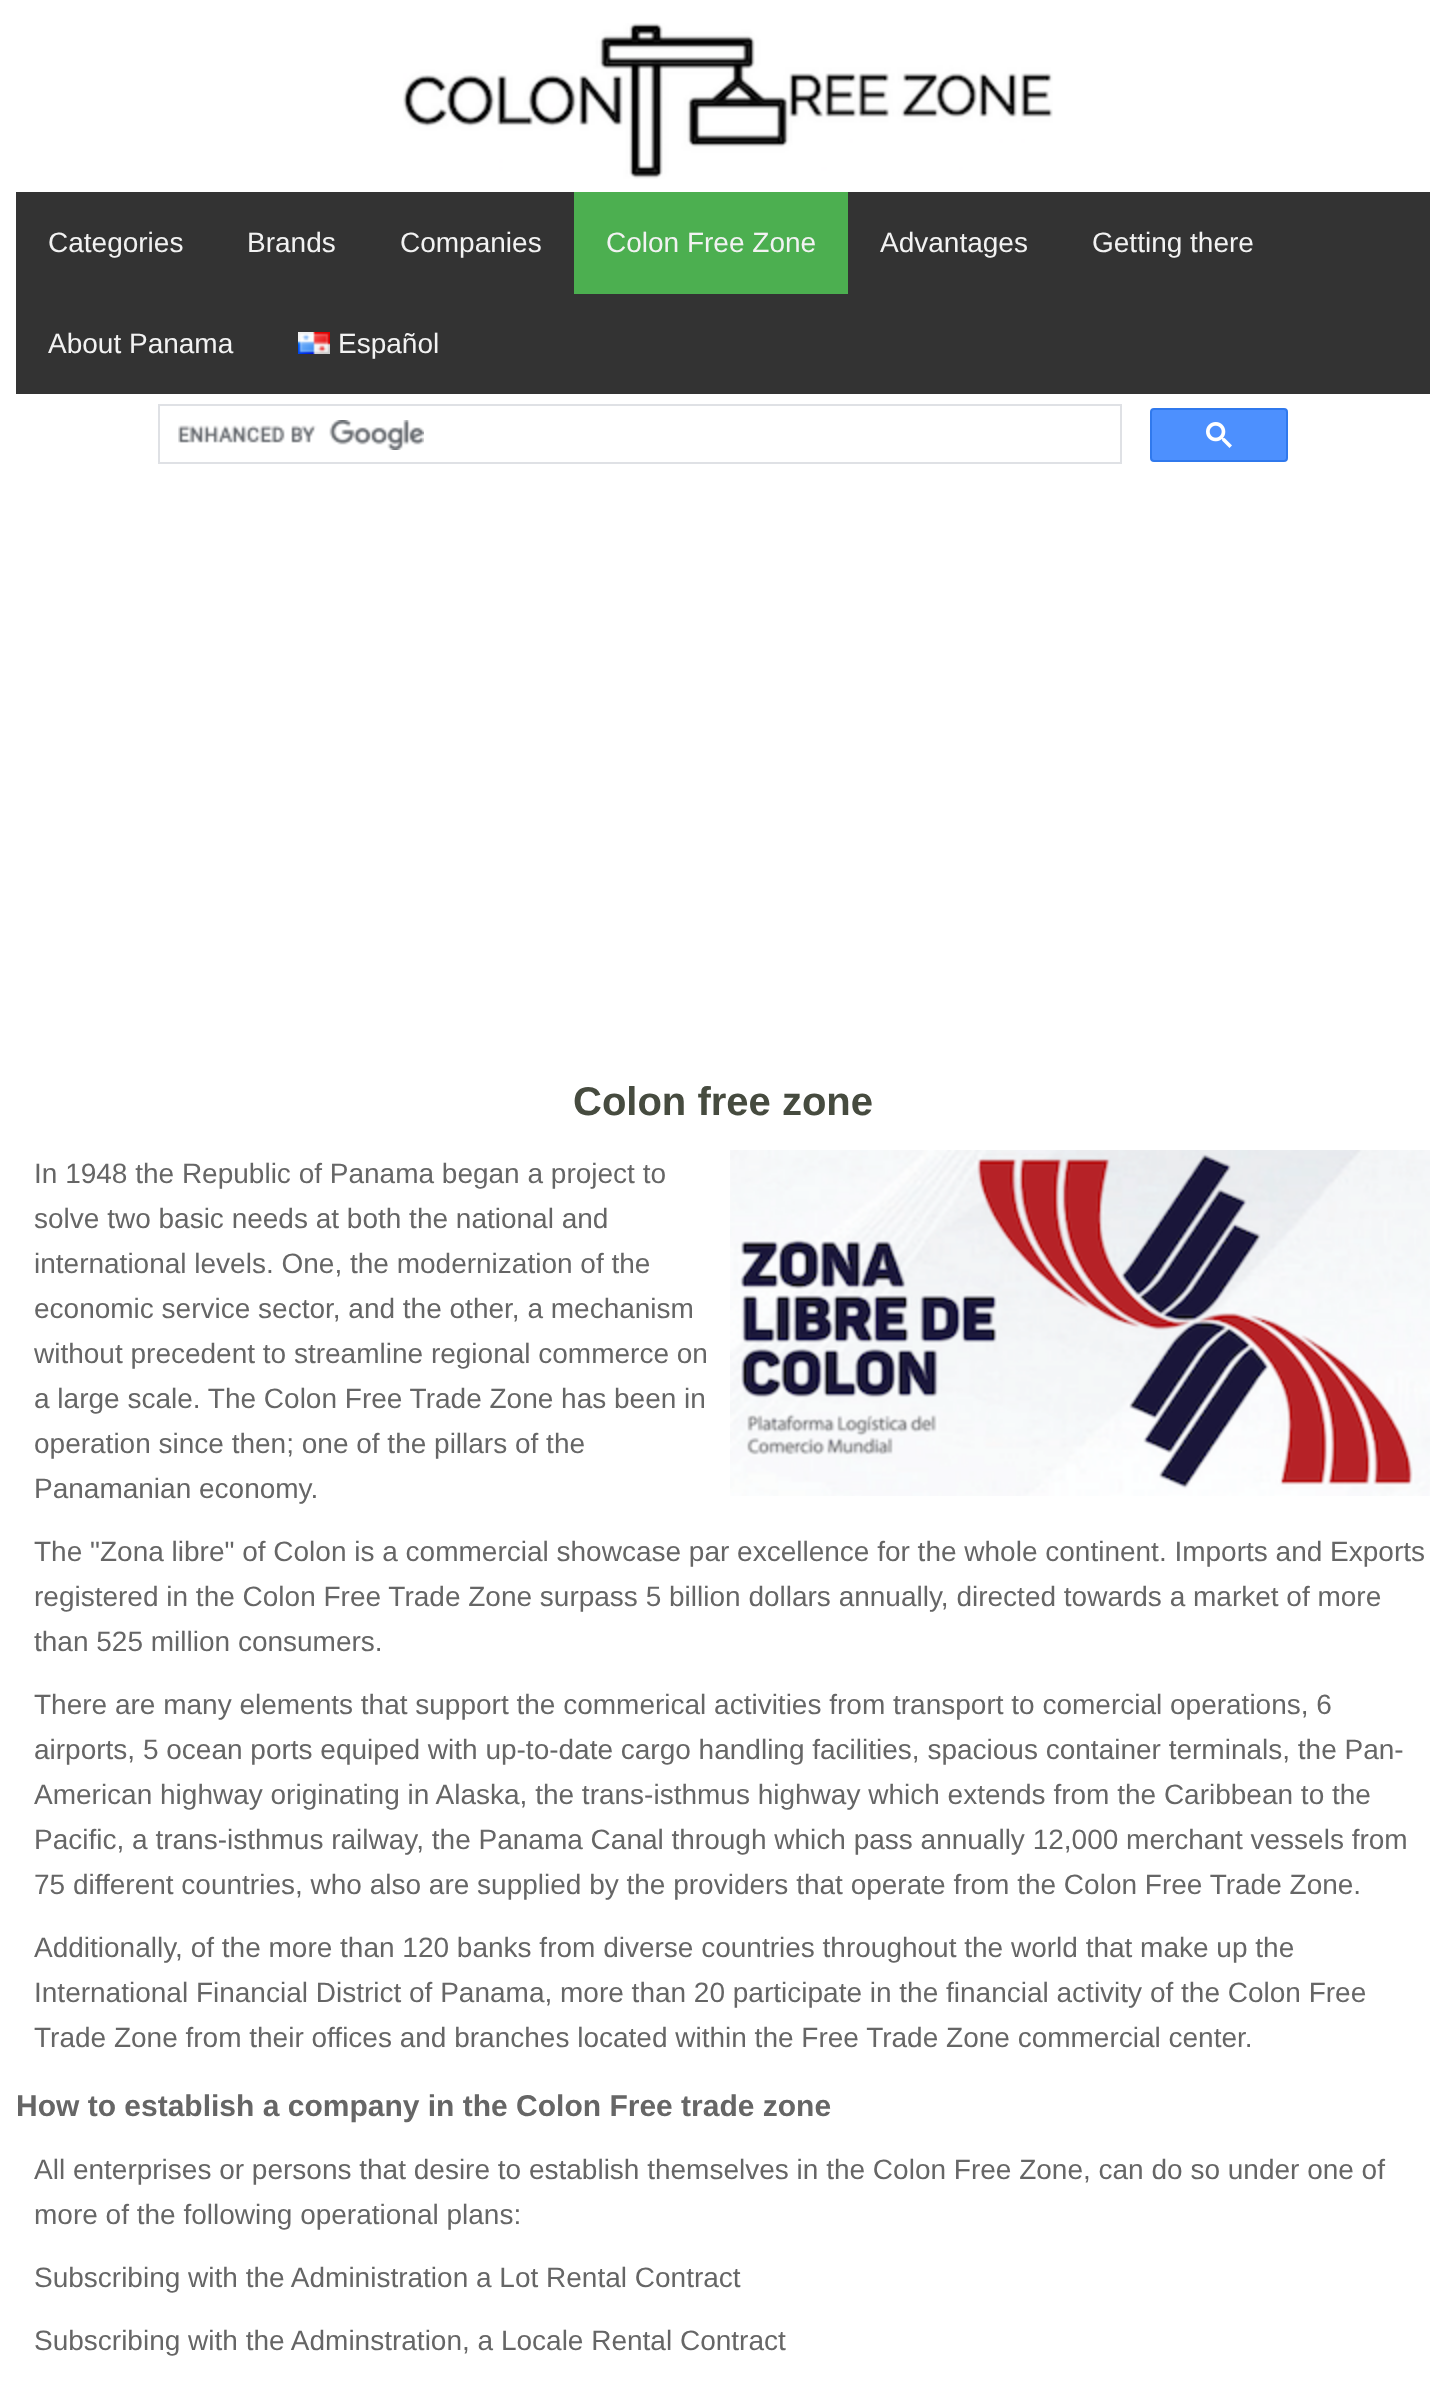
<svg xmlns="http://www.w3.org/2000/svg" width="1445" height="2385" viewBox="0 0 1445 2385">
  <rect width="100%" height="100%" fill="#fff"/>
  <image x="403" y="23" width="650" height="156" href="img/1.png"/>
  <path d="M16 192h1414v202H16z" fill="#333"/>
  <path d="M574 192h274v102H574z" fill="#4caf50"/>
  <image x="298" y="332" width="32" height="22" href="img/2.png"/>
  <path d="M159 405h962v58H159z" fill="none" stroke="#dfe1e5" stroke-width="2"/>
  <image x="178" y="420" width="246" height="30" href="img/3.png"/>
  <rect x="1151" y="409" width="136" height="52" rx="3" fill="#4d90fe" stroke="#3079ed" stroke-width="2"/>
  <image x="1206" y="422" width="26" height="26" href="img/4.png"/>
  <image x="730" y="1150" width="700" height="346" href="img/5.png"/>
  <g font-family="Liberation Sans" font-size="28" fill="#f2f2f2">
    <text x="48" y="252">Categories</text>
    <text x="247" y="252">Brands</text>
    <text x="400" y="252">Companies</text>
    <text x="606" y="252">Colon Free Zone</text>
    <text x="880" y="252">Advantages</text>
    <text x="1092" y="252">Getting there</text>
    <text x="48" y="353">About Panama</text>
    <text x="338" y="353">Español</text>
  </g>
  <text x="573" y="1115" font-family="Liberation Sans" font-size="40" font-weight="bold" fill="#464b3f">Colon free zone</text>
  <g font-family="Liberation Sans" font-size="28" fill="#666">
    <text x="34" y="1183">In 1948 the Republic of Panama began a project to</text>
    <text x="34" y="1228">solve two basic needs at both the national and</text>
    <text x="34" y="1273">international levels. One, the modernization of the</text>
    <text x="34" y="1318">economic service sector, and the other, a mechanism</text>
    <text x="34" y="1363">without precedent to streamline regional commerce on</text>
    <text x="34" y="1408">a large scale. The Colon Free Trade Zone has been in</text>
    <text x="34" y="1453">operation since then; one of the pillars of the</text>
    <text x="34" y="1498">Panamanian economy.</text>
    <text x="34" y="1561">The "Zona libre" of Colon is a commercial showcase par excellence for the whole continent. Imports and Exports</text>
    <text x="34" y="1606">registered in the Colon Free Trade Zone surpass 5 billion dollars annually, directed towards a market of more</text>
    <text x="34" y="1651">than 525 million consumers.</text>
    <text x="34" y="1714">There are many elements that support the commerical activities from transport to comercial operations, 6</text>
    <text x="34" y="1759">airports, 5 ocean ports equiped with up-to-date cargo handling facilities, spacious container terminals, the Pan-</text>
    <text x="34" y="1804">American highway originating in Alaska, the trans-isthmus highway which extends from the Caribbean to the</text>
    <text x="34" y="1849">Pacific, a trans-isthmus railway, the Panama Canal through which pass annually 12,000 merchant vessels from</text>
    <text x="34" y="1894">75 different countries, who also are supplied by the providers that operate from the Colon Free Trade Zone.</text>
    <text x="34" y="1957">Additionally, of the more than 120 banks from diverse countries throughout the world that make up the</text>
    <text x="34" y="2002">International Financial District of Panama, more than 20 participate in the financial activity of the Colon Free</text>
    <text x="34" y="2047">Trade Zone from their offices and branches located within the Free Trade Zone commercial center.</text>
  </g>
  <text x="16" y="2116" font-family="Liberation Sans" font-size="30" font-weight="bold" fill="#666">How to establish a company in the Colon Free trade zone</text>
  <g font-family="Liberation Sans" font-size="28" fill="#666">
    <text x="34" y="2179">All enterprises or persons that desire to establish themselves in the Colon Free Zone, can do so under one of</text>
    <text x="34" y="2224">more of the following operational plans:</text>
    <text x="34" y="2287">Subscribing with the Administration a Lot Rental Contract</text>
    <text x="34" y="2350">Subscribing with the Adminstration, a Locale Rental Contract</text>
  </g>
</svg>
